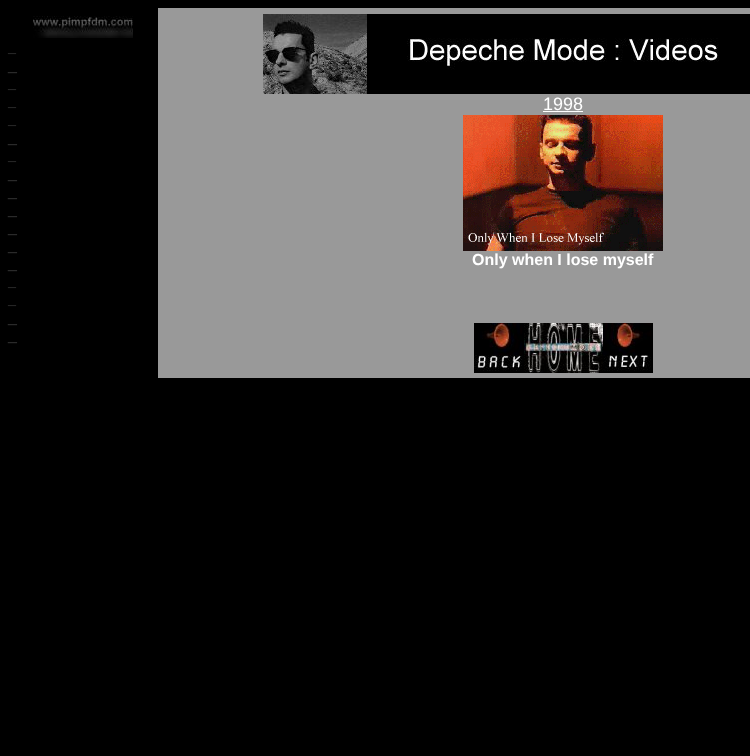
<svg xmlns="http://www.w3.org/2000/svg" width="750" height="756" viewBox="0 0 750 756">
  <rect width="100%" height="100%" fill="#000"/>
  <path d="M158 8h592v370H158z" fill="#999"/>
  <image x="33" y="16" width="100" height="22" href="img/1.png"/>
  <image x="263" y="14" width="487" height="80" href="img/2.png"/>
  <path d="M543 111h40v1H543z" fill="#fff"/>
  <image x="463" y="115" width="200" height="136" href="img/3.png"/>
  <image x="474" y="323" width="50" height="50" href="img/4.png"/>
  <image x="524" y="323" width="79" height="50" href="img/5.png"/>
  <image x="603" y="323" width="50" height="50" href="img/6.png"/>
  <text x="8" y="52" font-family="Liberation Serif" font-size="16" fill="#333">_</text>
  <text x="8" y="70" font-family="Liberation Sans" font-size="16" fill="#333">_</text>
  <g font-family="Liberation Serif" font-size="16" fill="#333">
    <text x="8" y="88">_</text>
    <text x="8" y="106">_</text>
    <text x="8" y="124">_</text>
  </g>
  <text x="8" y="142" font-family="Liberation Sans" font-size="16" fill="#333">_</text>
  <text x="8" y="160" font-family="Liberation Serif" font-size="16" fill="#333">_</text>
  <g font-family="Liberation Sans" font-size="16" fill="#333">
    <text x="8" y="178">_</text>
    <text x="8" y="196">_</text>
    <text x="8" y="214">_</text>
    <text x="8" y="232">_</text>
    <text x="8" y="250">_</text>
    <text x="8" y="268">_</text>
  </g>
  <g font-family="Liberation Serif" font-size="16" fill="#333">
    <text x="8" y="286">_</text>
    <text x="8" y="304">_</text>
  </g>
  <g font-family="Liberation Sans" font-size="16" fill="#333">
    <text x="8" y="322">_</text>
    <text x="8" y="340">_</text>
  </g>
  <text x="543" y="110" font-family="Liberation Sans" font-size="18" fill="#fff">1998</text>
  <text x="472" y="265" font-family="Liberation Sans" font-size="16" font-weight="bold" fill="#fff">Only when I lose myself</text>
</svg>
